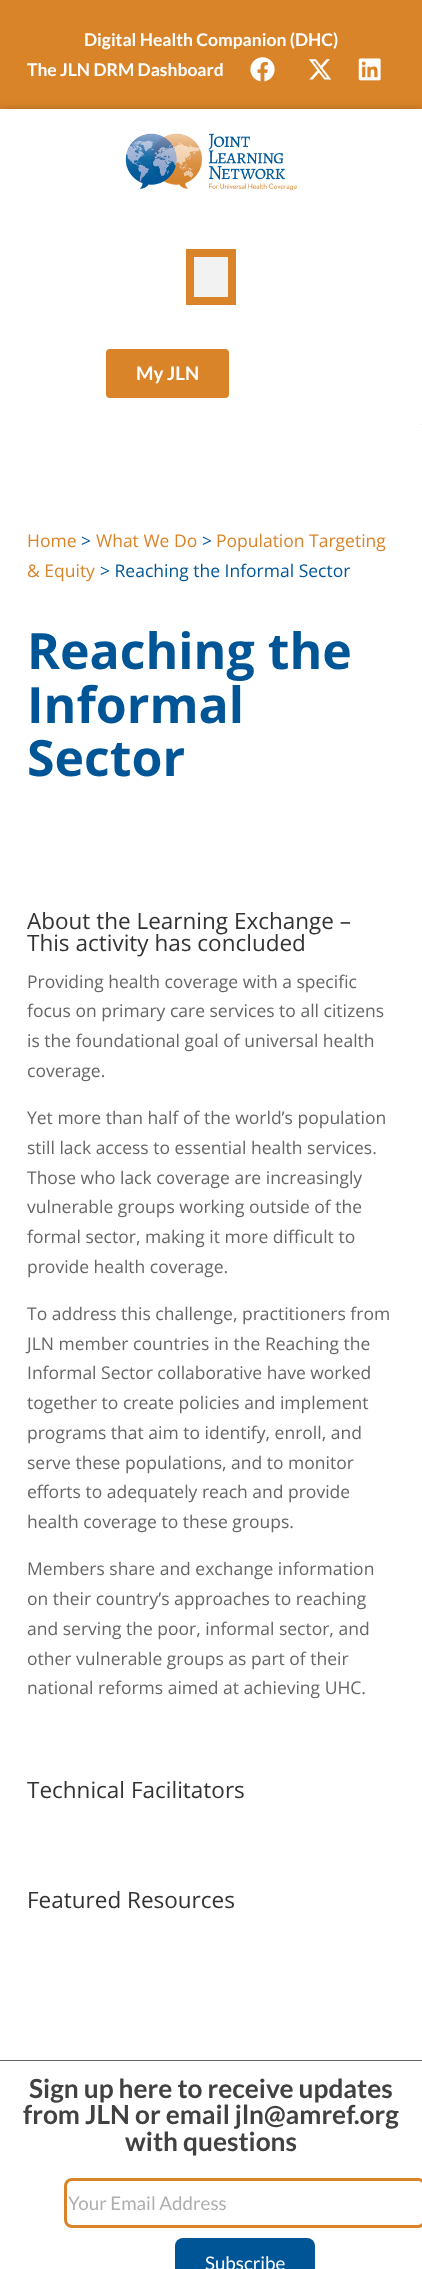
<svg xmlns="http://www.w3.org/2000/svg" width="422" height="2269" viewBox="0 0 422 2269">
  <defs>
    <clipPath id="clip1"><path d="M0 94H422V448H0ZM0 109H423V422.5C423 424 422 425 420.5 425H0Z" clip-rule="evenodd"/></clipPath>
  </defs>
  <rect width="100%" height="100%" fill="#fff"/>
  <path d="M0 0h422v109H0z" fill="#d98429"/>
  <image x="250" y="57" width="25" height="25" href="img/1.png"/>
  <image x="308" y="59" width="24" height="21" href="img/2.png"/>
  <image x="358" y="58" width="23" height="23" href="img/3.png"/>
  <g clip-path="url(#clip1)">
    <rect y="113" width="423" height="316" rx="2.5" fill="#00000080" filter="blur(6px)"/>
  </g>
  <image x="125" y="133" width="172" height="58" href="img/4.png"/>
  <path d="M190 253h42v48H190z" fill="#f2f2f2" stroke="#d98429" stroke-width="8"/>
  <rect x="106" y="349" width="123" height="49" rx="4" fill="#d98429"/>
  <path d="M0 425h422v16H0z" fill="#fff"/>
  <path d="M0 2060h422v1H0z" fill="#666"/>
  <rect x="65.5" y="2179.5" width="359" height="47" rx="6.5" fill="none" stroke="#d98429" stroke-width="3"/>
  <rect x="175" y="2238" width="140" height="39" rx="8" fill="#005596"/>
  <g font-family="Lato" font-size="17.5" font-weight="bold" fill="#fff">
    <text x="84" y="46">Digital Health Companion (DHC)</text>
    <text x="27" y="76">The JLN DRM Dashboard</text>
  </g>
  <text x="136" y="380" font-family="Lato" font-size="18.75" font-weight="bold" fill="#fff">My JLN</text>
  <text x="27" y="547" font-family="Open Sans" font-size="17.5" fill="#d98429">Home</text>
  <text x="81" y="547" font-family="Open Sans" font-size="17.5" fill="#005596">&gt;</text>
  <text x="96" y="547" font-family="Open Sans" font-size="17.5" fill="#d98429">What We Do</text>
  <text x="202" y="547" font-family="Open Sans" font-size="17.5" fill="#005596">&gt;</text>
  <g font-family="Open Sans" font-size="17.5" fill="#d98429">
    <text x="216" y="547">Population Targeting</text>
    <text x="27" y="577">&amp; Equity</text>
  </g>
  <text x="100" y="577" font-family="Open Sans" font-size="17.5" fill="#005596">&gt; Reaching the Informal Sector</text>
  <g font-family="Open Sans" font-size="50" font-weight="bold" fill="#005596">
    <text x="27" y="669">Reaching the</text>
    <text x="27" y="723">Informal</text>
    <text x="27" y="776">Sector</text>
  </g>
  <g font-family="Open Sans" font-size="22.5" fill="#333">
    <text x="27" y="929">About the Learning Exchange –</text>
    <text x="27" y="951">This activity has concluded</text>
  </g>
  <g font-family="Open Sans" font-size="17.5" fill="#666">
    <text x="27" y="988">Providing health coverage with a specific</text>
    <text x="27" y="1017">focus on primary care services to all citizens</text>
    <text x="27" y="1047">is the foundational goal of universal health</text>
    <text x="27" y="1077">coverage.</text>
    <text x="27" y="1124">Yet more than half of the world’s population</text>
    <text x="27" y="1154">still lack access to essential health services.</text>
    <text x="27" y="1184">Those who lack coverage are increasingly</text>
    <text x="27" y="1213">vulnerable groups working outside of the</text>
    <text x="27" y="1243">formal sector, making it more difficult to</text>
    <text x="27" y="1273">provide health coverage.</text>
    <text x="27" y="1320">To address this challenge, practitioners from</text>
    <text x="27" y="1350">JLN member countries in the Reaching the</text>
    <text x="27" y="1379">Informal Sector collaborative have worked</text>
    <text x="27" y="1409">together to create policies and implement</text>
    <text x="27" y="1439">programs that aim to identify, enroll, and</text>
    <text x="27" y="1469">serve these populations, and to monitor</text>
    <text x="27" y="1498">efforts to adequately reach and provide</text>
    <text x="27" y="1528">health coverage to these groups.</text>
    <text x="27" y="1575">Members share and exchange information</text>
    <text x="27" y="1605">on their country’s approaches to reaching</text>
    <text x="27" y="1635">and serving the poor, informal sector, and</text>
    <text x="27" y="1665">other vulnerable groups as part of their</text>
    <text x="27" y="1694">national reforms aimed at achieving UHC.</text>
  </g>
  <g font-family="Open Sans" font-size="22.5" fill="#333">
    <text x="27" y="1798">Technical Facilitators</text>
    <text x="27" y="1908">Featured Resources</text>
  </g>
  <g font-family="Lato" font-size="26.25" font-weight="bold" fill="#414141">
    <text x="29" y="2098">Sign up here to receive updates</text>
    <text x="23" y="2124">from JLN or email jln@amref.org</text>
    <text x="125" y="2151">with questions</text>
  </g>
  <text x="68" y="2210" font-family="Lato" font-size="18.75" fill="#afafaf">Your Email Address</text>
  <text x="205" y="2270" font-family="Lato" font-size="18.75" fill="#fff">Subscribe</text>
</svg>
